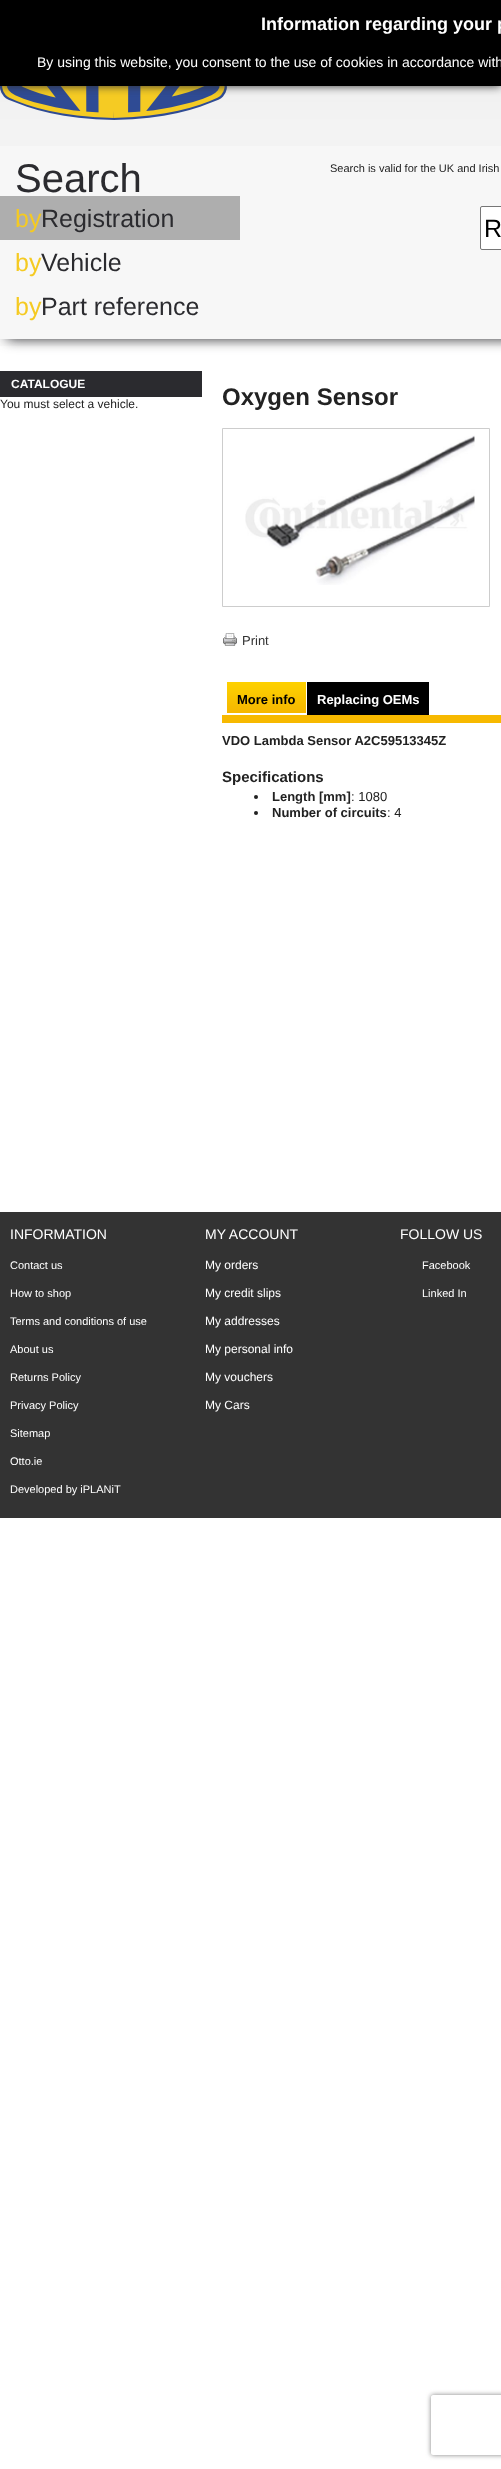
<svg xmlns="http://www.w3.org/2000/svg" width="501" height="2469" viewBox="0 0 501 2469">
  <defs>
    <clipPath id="clip1"><path d="M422 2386H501V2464H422ZM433 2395H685C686 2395 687 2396 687 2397V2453C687 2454 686 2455 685 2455H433C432 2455 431 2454 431 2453V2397C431 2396 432 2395 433 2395Z" clip-rule="evenodd"/></clipPath>
  </defs>
  <rect width="100%" height="100%" fill="#fff"/>
  <image x="0" y="86" width="501" height="260" href="img/1.png"/>
  <image x="0" y="86" width="227" height="34" href="img/2.png"/>
  <path d="M0 0h501v86H0z" fill="#333" filter="blur(5px)"/>
  <path d="M0 0h501v86H0z" fill="#000"/>
  <path d="M7 166h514v173H7z" fill="#2b2b2f" filter="blur(6.5px)"/>
  <path d="M0 146h501v193H0z" fill="#f7f7f7"/>
  <rect x="480.5" y="206.5" width="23" height="43" rx="1.5" fill="#fff" stroke="#767676"/>
  <path d="M0 196h240v44H0z" fill="#aeaeae"/>
  <path d="M0 371h202v26H0z" fill="#2b2b2f"/>
  <path d="M222.5 428.5h267v178H222.5z" fill="none" stroke="#cdcdcd"/>
  <image x="245" y="435" width="230" height="150" href="img/3.png"/>
  <image x="223" y="633" width="14" height="13" href="img/4.png"/>
  <path d="M222 715h279v8H222z" fill="#f7b900"/>
  <image x="227" y="682" width="79" height="31" href="img/5.png"/>
  <path d="M307 682h122v33H307z" fill="#000"/>
  <circle cx="256" cy="797" r="2" fill="#222"/>
  <circle cx="256" cy="813" r="2" fill="#222"/>
  <path d="M0 1212h501v306H0z" fill="#333"/>
  <g clip-path="url(#clip1)">
    <rect x="431" y="2395" width="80" height="60" rx="2" fill="#808080" filter="blur(2.5px)"/>
  </g>
  <text x="261" y="30" font-family="Liberation Sans" font-size="18" font-weight="bold" fill="#fff">Information regarding your p</text>
  <text x="37" y="67" font-family="Liberation Sans" font-size="14" fill="#fff">By using this website, you consent to the use of cookies in accordance with</text>
  <text x="15" y="192" font-family="Liberation Sans" font-size="40" fill="#2b2b2f">Search</text>
  <text x="330" y="172" font-family="Liberation Sans" font-size="11" fill="#222">Search is valid for the UK and Irish</text>
  <text x="484" y="237" font-family="Liberation Sans" font-size="25" fill="#000">R</text>
  <text x="15" y="227" font-family="Liberation Sans" font-size="25" fill="#f5ca22">by</text>
  <text x="41" y="227" font-family="Liberation Sans" font-size="25" fill="#2b2b2f">Registration</text>
  <text x="15" y="271" font-family="Liberation Sans" font-size="25" fill="#f5ca22">by</text>
  <text x="41" y="271" font-family="Liberation Sans" font-size="25" fill="#2b2b2f">Vehicle</text>
  <text x="15" y="315" font-family="Liberation Sans" font-size="25" fill="#f5ca22">by</text>
  <text x="41" y="315" font-family="Liberation Sans" font-size="25" fill="#2b2b2f">Part reference</text>
  <text x="11" y="388" font-family="Liberation Sans" font-size="12" font-weight="bold" fill="#fff">CATALOGUE</text>
  <text x="0" y="408" font-family="Liberation Sans" font-size="12" fill="#222">You must select a vehicle.</text>
  <text x="222" y="405" font-family="Liberation Sans" font-size="24" font-weight="bold" fill="#222">Oxygen Sensor</text>
  <text x="242" y="645" font-family="Liberation Sans" font-size="13" fill="#333">Print</text>
  <text x="237" y="704" font-family="Liberation Sans" font-size="13" font-weight="bold" fill="#000">More info</text>
  <text x="317" y="704" font-family="Liberation Sans" font-size="13" font-weight="bold" fill="#fff">Replacing OEMs</text>
  <text x="222" y="745" font-family="Liberation Sans" font-size="13" font-weight="bold" fill="#222">VDO Lambda Sensor A2C59513345Z</text>
  <text x="222" y="782" font-family="Liberation Sans" font-size="15" font-weight="bold" fill="#222">Specifications</text>
  <text x="272" y="801" font-family="Liberation Sans" font-size="13" font-weight="bold" fill="#222">Length [mm]</text>
  <text x="351" y="801" font-family="Liberation Sans" font-size="13" fill="#222">: 1080</text>
  <text x="272" y="817" font-family="Liberation Sans" font-size="13" font-weight="bold" fill="#222">Number of circuits</text>
  <text x="387" y="817" font-family="Liberation Sans" font-size="13" fill="#222">: 4</text>
  <text x="10" y="1239" font-family="Liberation Sans" font-size="14" fill="#fff">INFORMATION</text>
  <g font-family="Liberation Sans" font-size="11" fill="#fff">
    <text x="10" y="1269">Contact us</text>
    <text x="10" y="1297">How to shop</text>
    <text x="10" y="1325">Terms and conditions of use</text>
    <text x="10" y="1353">About us</text>
    <text x="10" y="1381">Returns Policy</text>
    <text x="10" y="1409">Privacy Policy</text>
    <text x="10" y="1437">Sitemap</text>
    <text x="10" y="1465">Otto.ie</text>
    <text x="10" y="1493">Developed by iPLANiT</text>
  </g>
  <text x="205" y="1239" font-family="Liberation Sans" font-size="14" fill="#fff">MY ACCOUNT</text>
  <g font-family="Liberation Sans" font-size="12" fill="#fff">
    <text x="205" y="1269">My orders</text>
    <text x="205" y="1297">My credit slips</text>
    <text x="205" y="1325">My addresses</text>
    <text x="205" y="1353">My personal info</text>
    <text x="205" y="1381">My vouchers</text>
    <text x="205" y="1409">My Cars</text>
  </g>
  <text x="400" y="1239" font-family="Liberation Sans" font-size="14" fill="#fff">FOLLOW US</text>
  <g font-family="Liberation Sans" font-size="11" fill="#fff">
    <text x="422" y="1269">Facebook</text>
    <text x="422" y="1297">Linked In</text>
  </g>
</svg>
